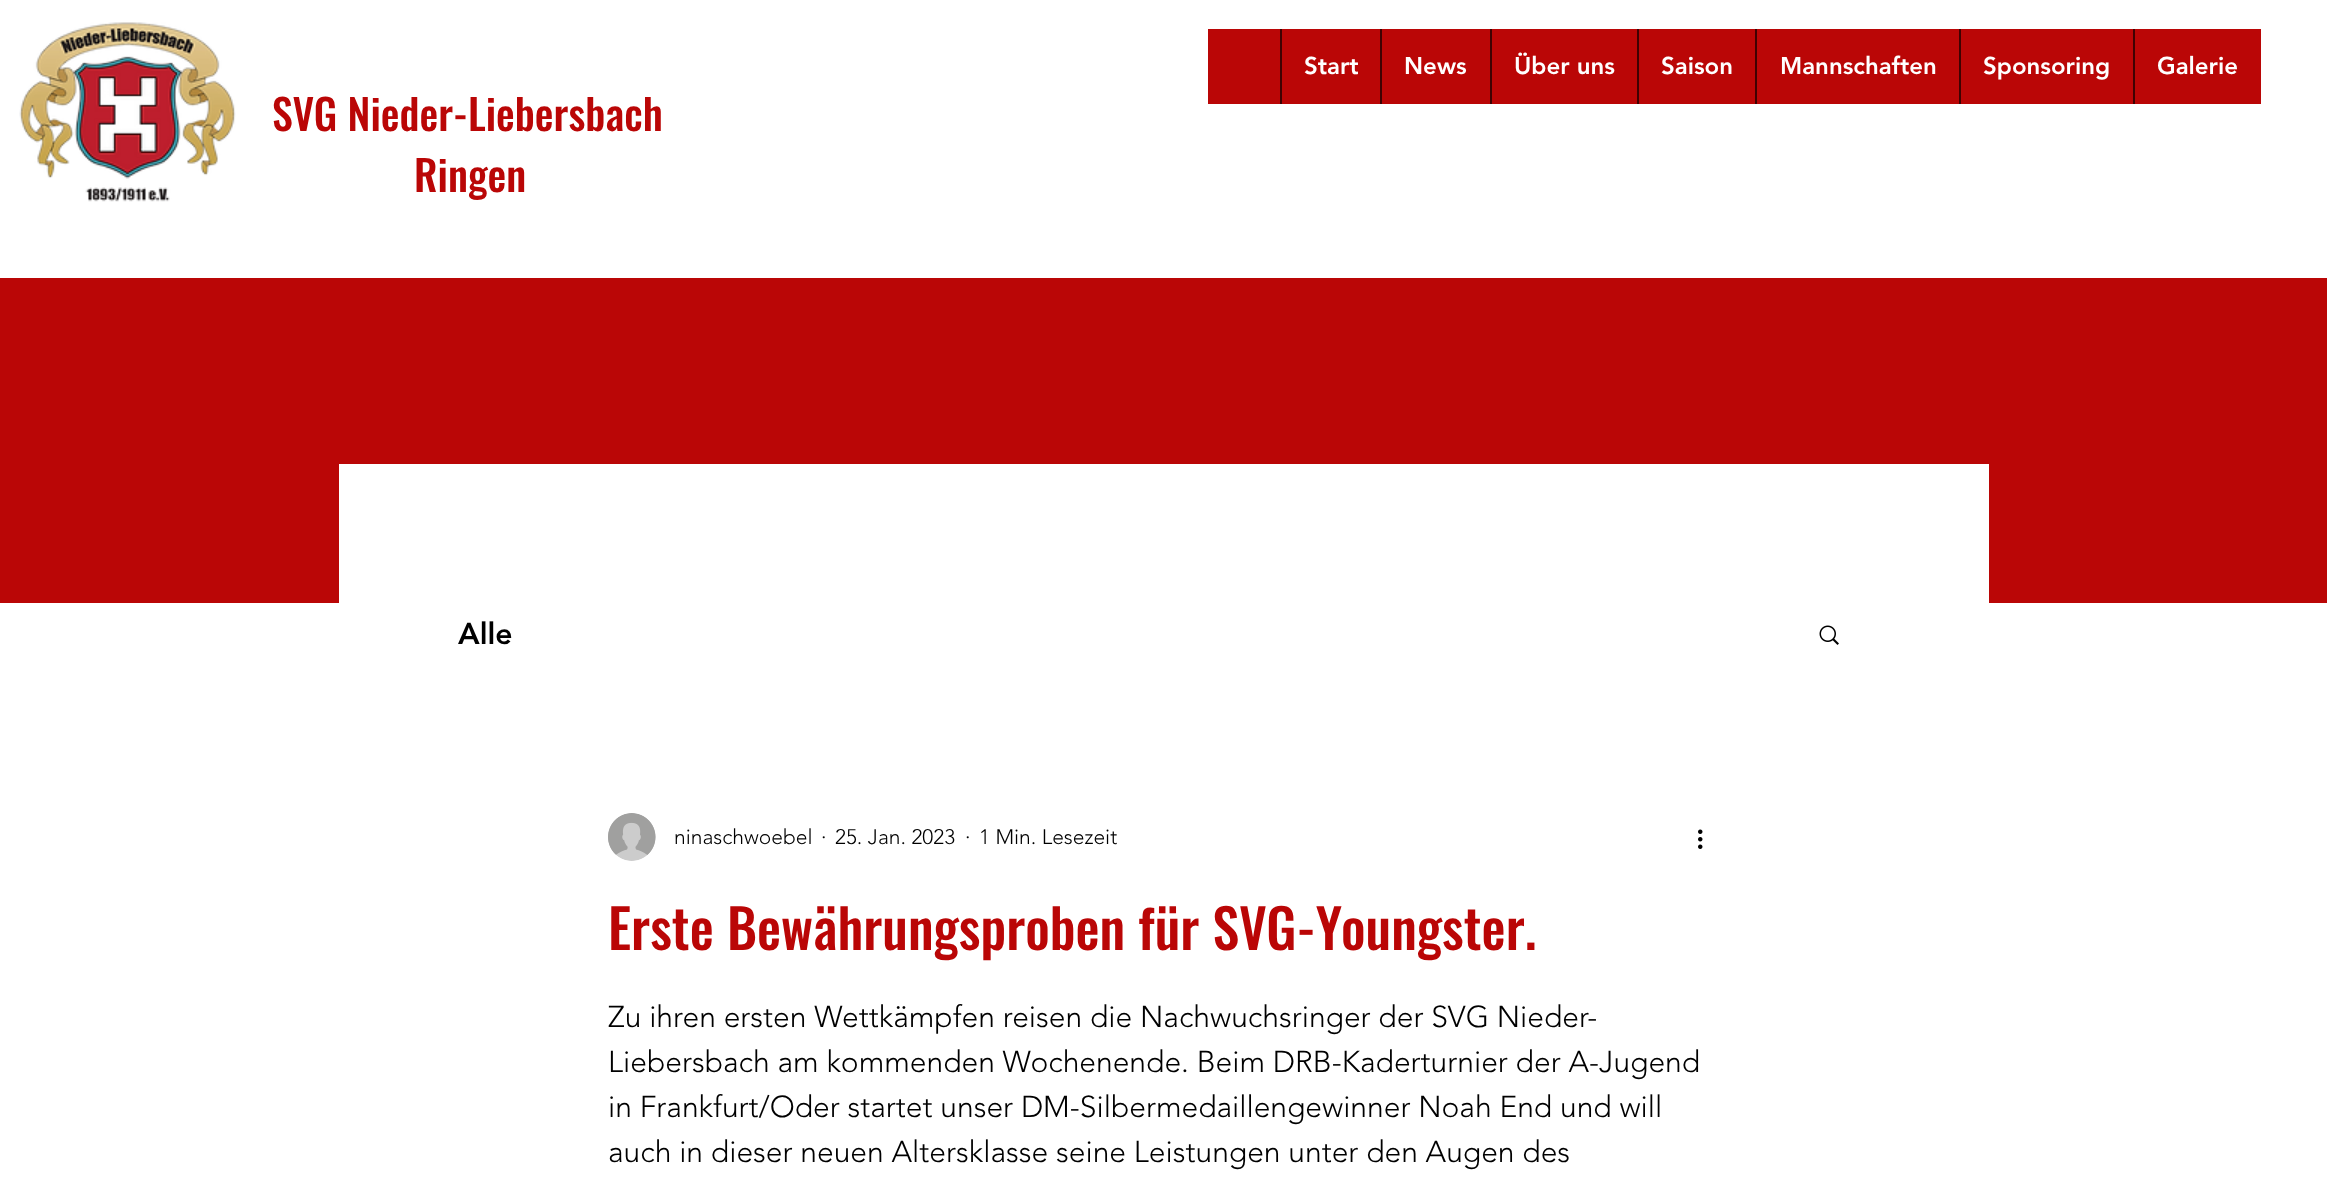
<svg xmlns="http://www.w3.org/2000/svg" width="2327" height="1200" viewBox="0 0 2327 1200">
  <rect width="100%" height="100%" fill="#fff"/>
  <path d="M1208 29h1053v75H1208z" fill="#ba0606"/>
  <path d="M1280 29h2v75H1280z" fill="#3e0202"/>
  <path d="M1380 29h2v75H1380z" fill="#3e0202"/>
  <path d="M1490 29h2v75H1490z" fill="#3e0202"/>
  <path d="M1637 29h2v75H1637z" fill="#3e0202"/>
  <path d="M1755 29h2v75H1755z" fill="#3e0202"/>
  <path d="M1959 29h2v75H1959z" fill="#3e0202"/>
  <path d="M2133 29h2v75H2133z" fill="#3e0202"/>
  <image x="19" y="22" width="217" height="180" href="img/1.png"/>
  <path d="M0 278h2327v325H0z" fill="#ba0606"/>
  <path d="M339 464h1650v139H339z" fill="#fff"/>
  <image x="1819" y="625" width="20" height="20" href="img/2.png"/>
  <image x="608" y="813" width="48" height="48" href="img/3.png"/>
  <image x="1698" y="829" width="5" height="20" href="img/4.png"/>
  <g font-family="'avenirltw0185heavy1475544'" font-size="24" font-weight="900" fill="#fff">
    <text x="1304" y="74">Start</text>
    <text x="1404" y="74">News</text>
    <text x="1514" y="74">Über uns</text>
    <text x="1661" y="74">Saison</text>
    <text x="1780" y="74">Mannschaften</text>
    <text x="1983" y="74">Sponsoring</text>
    <text x="2157" y="74">Galerie</text>
  </g>
  <g font-family="Oswald" font-size="42" font-weight="500" fill="#ba0606">
    <text x="272" y="131">SVG Nieder-Liebersbach</text>
    <text x="414" y="192">Ringen</text>
  </g>
  <text x="458" y="644" font-family="'avenirltw0185heavy1475544'" font-size="30" font-weight="900" fill="#000">Alle</text>
  <g font-family="'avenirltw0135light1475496'" font-size="21" font-weight="300" fill="#000">
    <text x="674" y="844">ninaschwoebel</text>
    <text x="821" y="844">·</text>
    <text x="835" y="844">25. Jan. 2023</text>
    <text x="965" y="844">·</text>
    <text x="979" y="844">1 Min. Lesezeit</text>
  </g>
  <text x="608" y="950" font-family="Oswald" font-size="54" font-weight="500" fill="#ba0606">Erste Bewährungsproben für SVG-Youngster.</text>
  <g font-family="'avenirltw0135light1475496'" font-size="30" font-weight="300" fill="#000">
    <text x="608" y="1027">Zu ihren ersten Wettkämpfen reisen die Nachwuchsringer der SVG Nieder-</text>
    <text x="608" y="1072">Liebersbach am kommenden Wochenende. Beim DRB-Kaderturnier der A-Jugend</text>
    <text x="608" y="1117">in Frankfurt/Oder startet unser DM-Silbermedaillengewinner Noah End und will</text>
    <text x="608" y="1162">auch in dieser neuen Altersklasse seine Leistungen unter den Augen des</text>
  </g>
</svg>
